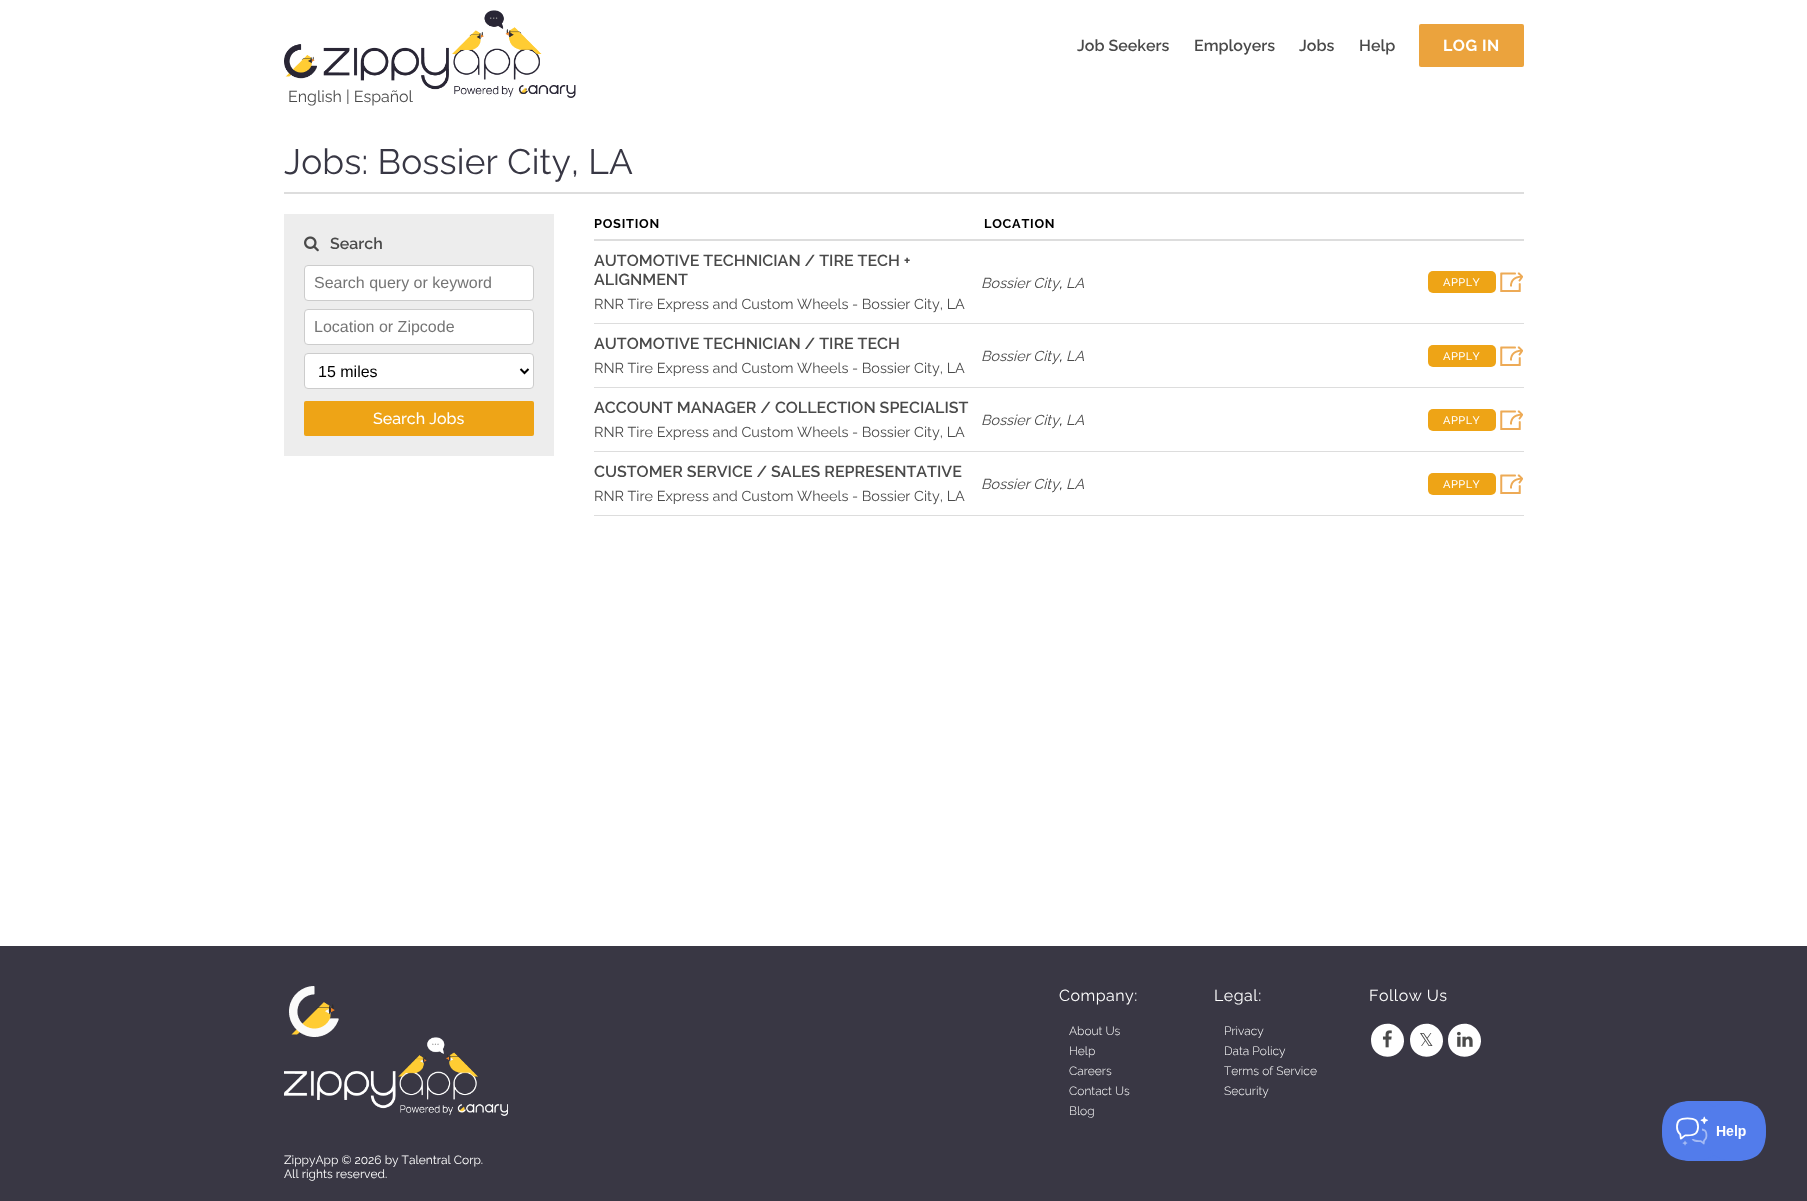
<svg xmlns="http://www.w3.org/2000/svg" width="1807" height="1201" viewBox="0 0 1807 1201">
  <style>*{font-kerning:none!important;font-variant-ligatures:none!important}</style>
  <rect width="100%" height="100%" fill="#fff"/>
  <image x="284" y="10" width="292" height="88" href="img/1.png"/>
  <rect x="1419" y="24" width="105" height="43" rx="2" fill="#eba33d"/>
  <path d="M284 192h1240v2H284z" fill="#ddd"/>
  <path d="M284 214h270v242H284z" fill="#ededed"/>
  <image x="304" y="236" width="15" height="16" href="img/2.png"/>
  <rect x="304.5" y="265.5" width="229" height="35" rx="3.5" fill="#fff" stroke="#ccc"/>
  <rect x="304.5" y="309.5" width="229" height="35" rx="3.5" fill="#fff" stroke="#ccc"/>
  <rect x="304.5" y="353.5" width="229" height="35" rx="3.5" fill="#fff" stroke="#ccc"/>
  <path d="M520.5 369L524.5 373L528.5 369" fill="none" stroke="#000" stroke-width="2"/>
  <rect x="304" y="401" width="230" height="35" rx="2" fill="#eea416"/>
  <path d="M594 239h930v2H594z" fill="#ddd"/>
  <path d="M594 323h930v1H594z" fill="#ddd"/>
  <rect x="1428" y="271" width="68" height="22" rx="5" fill="#eea416"/>
  <image x="1500" y="272" width="23" height="20" href="img/3.png"/>
  <path d="M594 387h930v1H594z" fill="#ddd"/>
  <rect x="1428" y="345" width="68" height="22" rx="5" fill="#eea416"/>
  <image x="1500" y="346" width="23" height="20" href="img/3.png"/>
  <path d="M594 451h930v1H594z" fill="#ddd"/>
  <rect x="1428" y="409" width="68" height="22" rx="5" fill="#eea416"/>
  <image x="1500" y="410" width="23" height="20" href="img/3.png"/>
  <path d="M594 515h930v1H594z" fill="#ddd"/>
  <rect x="1428" y="473" width="68" height="22" rx="5" fill="#eea416"/>
  <image x="1500" y="474" width="23" height="20" href="img/3.png"/>
  <path d="M0 946h1807v255H0z" fill="#393744"/>
  <image x="289" y="986" width="50" height="51" href="img/4.png"/>
  <image x="284" y="1037" width="224" height="79" href="img/5.png"/>
  <path d="M1401.5 1032C1403.5 1035 1404 1038 1404 1041.5C1403 1057.5 1381.5 1062.5 1373 1048.5C1371.5 1045.5 1371 1042.5 1371 1039C1372 1023 1393.5 1018 1401.5 1032Z" fill="#fff"/>
  <image x="1382" y="1030" width="10" height="18" href="img/6.png"/>
  <path d="M1440.5 1032C1442.5 1035 1443 1038 1443 1041.5C1442 1057.5 1420.5 1062.5 1412 1048.5C1410.5 1045.5 1410 1042.5 1410 1039C1411 1023 1432.5 1018 1440.5 1032Z" fill="#fff"/>
  <path d="M1478.5 1032C1480.5 1035 1481 1038 1481 1041.5C1480 1057.5 1458.5 1062.5 1450 1048.5C1448.5 1045.5 1448 1042.5 1448 1039C1449 1023 1470.5 1018 1478.5 1032Z" fill="#fff"/>
  <image x="1457" y="1031" width="16" height="16" href="img/7.png"/>
  <image x="1662" y="1101" width="104" height="60" href="img/8.png"/>
  <g font-family="Raleway" font-size="16" font-weight="600" fill="#4a4a4a">
    <text x="1077" y="51">Job Seekers</text>
    <text x="1194" y="51">Employers</text>
    <text x="1299" y="51">Jobs</text>
    <text x="1359" y="51">Help</text>
  </g>
  <text x="1443" y="51" font-family="Raleway" font-size="16" font-weight="bold" letter-spacing="0.5" fill="#fff">LOG IN</text>
  <text x="288" y="102" font-family="Raleway" font-size="16" fill="#4a4a4a">English | Español</text>
  <text x="284" y="174" font-family="Raleway" font-size="35.25" letter-spacing="0.2" fill="#383744">Jobs: Bossier City, LA</text>
  <text x="330" y="249" font-family="Raleway" font-size="16" font-weight="600" fill="#4a4a4a">Search</text>
  <g font-family="Liberation Sans" font-size="16" fill="#757575">
    <text x="314" y="288">Search query or keyword</text>
    <text x="314" y="332">Location or Zipcode</text>
  </g>
  <text x="318" y="377" font-family="Liberation Sans" font-size="16" fill="#000">15 miles</text>
  <text x="373" y="424" font-family="Raleway" font-size="16" font-weight="500" fill="#fff">Search Jobs</text>
  <g font-family="Raleway" font-size="12.75" font-weight="bold" letter-spacing="0.75" fill="#000">
    <text x="594" y="228">POSITION</text>
    <text x="984" y="228">LOCATION</text>
  </g>
  <g font-family="Raleway" font-size="16" font-weight="600" fill="#4a4a4a">
    <text x="594" y="266">AUTOMOTIVE TECHNICIAN / TIRE TECH +</text>
    <text x="594" y="285">ALIGNMENT</text>
  </g>
  <text x="594" y="309" font-family="Raleway" font-size="14.4" fill="#4a4a4a">RNR Tire Express and Custom Wheels - Bossier City, LA</text>
  <g font-family="Raleway" font-size="14.4" font-style="italic" fill="#4a4a4a">
    <text x="981" y="288">Bossier City</text>
    <text x="1066" y="288">LA</text>
  </g>
  <text x="1059" y="288" font-family="Raleway" font-size="14.4" font-style="italic" fill="#000">,</text>
  <text x="1443" y="286" font-family="Raleway" font-size="11" font-weight="500" letter-spacing="0.5" fill="#fff">APPLY</text>
  <text x="594" y="349" font-family="Raleway" font-size="16" font-weight="600" fill="#4a4a4a">AUTOMOTIVE TECHNICIAN / TIRE TECH</text>
  <text x="594" y="373" font-family="Raleway" font-size="14.4" fill="#4a4a4a">RNR Tire Express and Custom Wheels - Bossier City, LA</text>
  <g font-family="Raleway" font-size="14.4" font-style="italic" fill="#4a4a4a">
    <text x="981" y="361">Bossier City</text>
    <text x="1066" y="361">LA</text>
  </g>
  <text x="1059" y="361" font-family="Raleway" font-size="14.4" font-style="italic" fill="#000">,</text>
  <text x="1443" y="360" font-family="Raleway" font-size="11" font-weight="500" letter-spacing="0.5" fill="#fff">APPLY</text>
  <text x="594" y="413" font-family="Raleway" font-size="16" font-weight="600" fill="#4a4a4a">ACCOUNT MANAGER / COLLECTION SPECIALIST</text>
  <text x="594" y="437" font-family="Raleway" font-size="14.4" fill="#4a4a4a">RNR Tire Express and Custom Wheels - Bossier City, LA</text>
  <g font-family="Raleway" font-size="14.4" font-style="italic" fill="#4a4a4a">
    <text x="981" y="425">Bossier City</text>
    <text x="1066" y="425">LA</text>
  </g>
  <text x="1059" y="425" font-family="Raleway" font-size="14.4" font-style="italic" fill="#000">,</text>
  <text x="1443" y="424" font-family="Raleway" font-size="11" font-weight="500" letter-spacing="0.5" fill="#fff">APPLY</text>
  <text x="594" y="477" font-family="Raleway" font-size="16" font-weight="600" fill="#4a4a4a">CUSTOMER SERVICE / SALES REPRESENTATIVE</text>
  <text x="594" y="501" font-family="Raleway" font-size="14.4" fill="#4a4a4a">RNR Tire Express and Custom Wheels - Bossier City, LA</text>
  <g font-family="Raleway" font-size="14.4" font-style="italic" fill="#4a4a4a">
    <text x="981" y="489">Bossier City</text>
    <text x="1066" y="489">LA</text>
  </g>
  <text x="1059" y="489" font-family="Raleway" font-size="14.4" font-style="italic" fill="#000">,</text>
  <text x="1443" y="488" font-family="Raleway" font-size="11" font-weight="500" letter-spacing="0.5" fill="#fff">APPLY</text>
  <text x="1059" y="1001" font-family="Raleway" font-size="16" letter-spacing="0.5" fill="#fff">Company:</text>
  <g font-family="Raleway" font-size="12" font-weight="300" fill="#fff">
    <text x="1069" y="1035">About Us</text>
    <text x="1069" y="1055">Help</text>
    <text x="1069" y="1075">Careers</text>
    <text x="1069" y="1095">Contact Us</text>
    <text x="1069" y="1115">Blog</text>
  </g>
  <text x="1214" y="1001" font-family="Raleway" font-size="16" letter-spacing="0.5" fill="#fff">Legal:</text>
  <g font-family="Raleway" font-size="12" font-weight="300" fill="#fff">
    <text x="1224" y="1035">Privacy</text>
    <text x="1224" y="1055">Data Policy</text>
    <text x="1224" y="1075">Terms of Service</text>
    <text x="1224" y="1095">Security</text>
  </g>
  <text x="1369" y="1001" font-family="Raleway" font-size="16" letter-spacing="0.5" fill="#fff">Follow Us</text>
  <text x="1419" y="1046" font-family="DejaVu Sans" font-size="18" fill="#4a4a4a">𝕏</text>
  <g font-family="Raleway" font-size="12" fill="#fff">
    <text x="284" y="1164">ZippyApp © 2026 by Talentral Corp.</text>
    <text x="284" y="1178">All rights reserved.</text>
  </g>
</svg>
